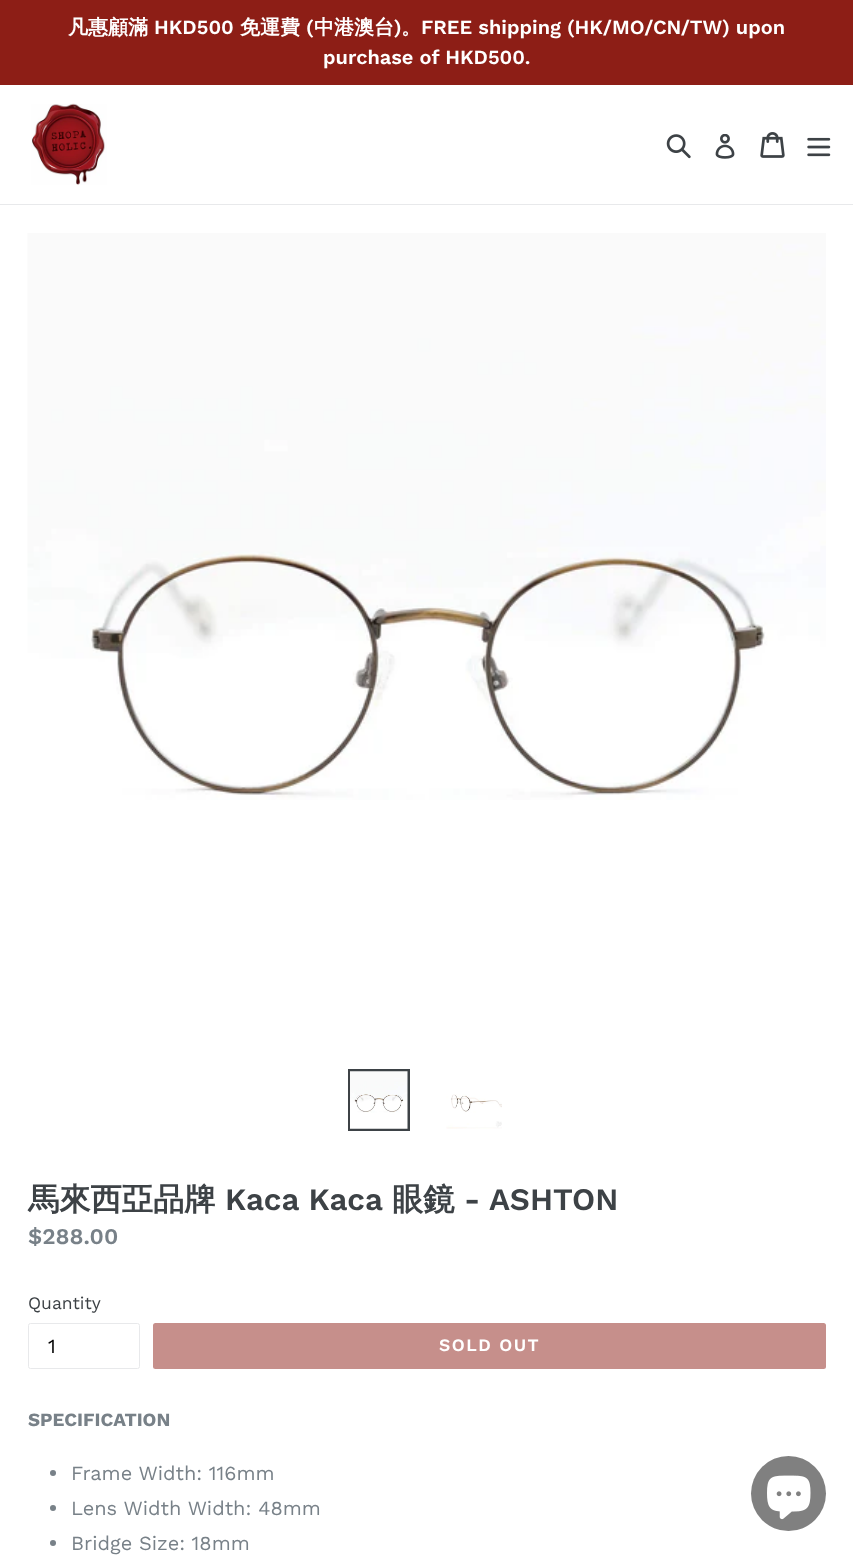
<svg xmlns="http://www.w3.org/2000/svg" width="853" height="1557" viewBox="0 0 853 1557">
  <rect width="100%" height="100%" fill="#fff"/>
  <path d="M0 0h853v85H0z" fill="#8d1e16"/>
  <path d="M0 204h853v1H0z" fill="#e8e9eb"/>
  <image x="31" y="103" width="76" height="82" href="img/1.png"/>
  <image x="666" y="134" width="25" height="25" href="img/2.png"/>
  <image x="715" y="134" width="20" height="25" href="img/3.png"/>
  <image x="760" y="132" width="25" height="26" href="img/4.png"/>
  <image x="807" y="137" width="24" height="20" href="img/5.png"/>
  <image x="27" y="233" width="799" height="567" href="img/6.png"/>
  <path d="M349.5 1070.5h59v59H349.5z" fill="none" stroke="#3d4246" stroke-width="3"/>
  <image x="350" y="1071" width="58" height="58" href="img/7.png"/>
  <image x="446" y="1094" width="56" height="35" href="img/8.png"/>
  <rect x="28.5" y="1323.5" width="111" height="45" rx="2" fill="none" stroke="#e8e9eb"/>
  <rect x="153" y="1323" width="673" height="46" rx="2.5" fill="#c68f8b"/>
  <circle cx="53" cy="1473" r="3" fill="#788188"/>
  <circle cx="53" cy="1508" r="3" fill="#788188"/>
  <circle cx="53" cy="1543" r="3" fill="#788188"/>
  <circle cx="788.5" cy="1493.5" r="37.5" fill="#808080"/>
  <image x="767" y="1475" width="44" height="45" href="img/9.png"/>
  <text x="68" y="34" font-family="WenQuanYi Zen Hei" font-size="20" font-weight="bold" fill="#fff">凡惠顧滿</text>
  <text x="154" y="34" font-family="Work Sans" font-size="20" font-weight="600" fill="#fff">HKD500</text>
  <text x="240" y="34" font-family="WenQuanYi Zen Hei" font-size="20" font-weight="bold" fill="#fff">免運費</text>
  <text x="306" y="34" font-family="Work Sans" font-size="20" font-weight="600" fill="#fff">(</text>
  <text x="314" y="34" font-family="WenQuanYi Zen Hei" font-size="20" font-weight="bold" fill="#fff">中港澳台</text>
  <text x="394" y="34" font-family="Work Sans" font-size="20" font-weight="600" fill="#fff">)</text>
  <text x="401" y="34" font-family="WenQuanYi Zen Hei" font-size="20" font-weight="bold" fill="#fff">。</text>
  <g font-family="Work Sans" font-size="20" font-weight="600" fill="#fff">
    <text x="421" y="34">FREE shipping (HK/MO/CN/TW) upon</text>
    <text x="323" y="64">purchase of HKD500.</text>
  </g>
  <text x="28" y="1210" font-family="WenQuanYi Zen Hei" font-size="31.25" font-weight="bold" fill="#3d4246">馬來西亞品牌</text>
  <text x="225" y="1210" font-family="Work Sans" font-size="31.25" font-weight="600" fill="#3d4246">Kaca Kaca</text>
  <text x="392" y="1210" font-family="WenQuanYi Zen Hei" font-size="31.25" font-weight="bold" fill="#3d4246">眼鏡</text>
  <text x="464" y="1210" font-family="Work Sans" font-size="31.25" font-weight="600" fill="#3d4246">- ASHTON</text>
  <text x="28" y="1244" font-family="Work Sans" font-size="22.5" font-weight="600" fill="#788188">$288.00</text>
  <text x="28" y="1309" font-family="Work Sans" font-size="17.5" fill="#3d4246">Quantity</text>
  <text x="48" y="1353" font-family="Work Sans" font-size="20" fill="#000">1</text>
  <text x="439" y="1351" font-family="Work Sans" font-size="17.5" font-weight="600" letter-spacing="1.5" fill="#fff">SOLD OUT</text>
  <text x="28" y="1426" font-family="Work Sans" font-size="18.75" font-weight="bold" fill="#788188">SPECIFICATION</text>
  <g font-family="Work Sans" font-size="20" fill="#788188">
    <text x="71" y="1480">Frame Width: 116mm</text>
    <text x="71" y="1515">Lens Width Width: 48mm</text>
    <text x="71" y="1550">Bridge Size: 18mm</text>
  </g>
</svg>
